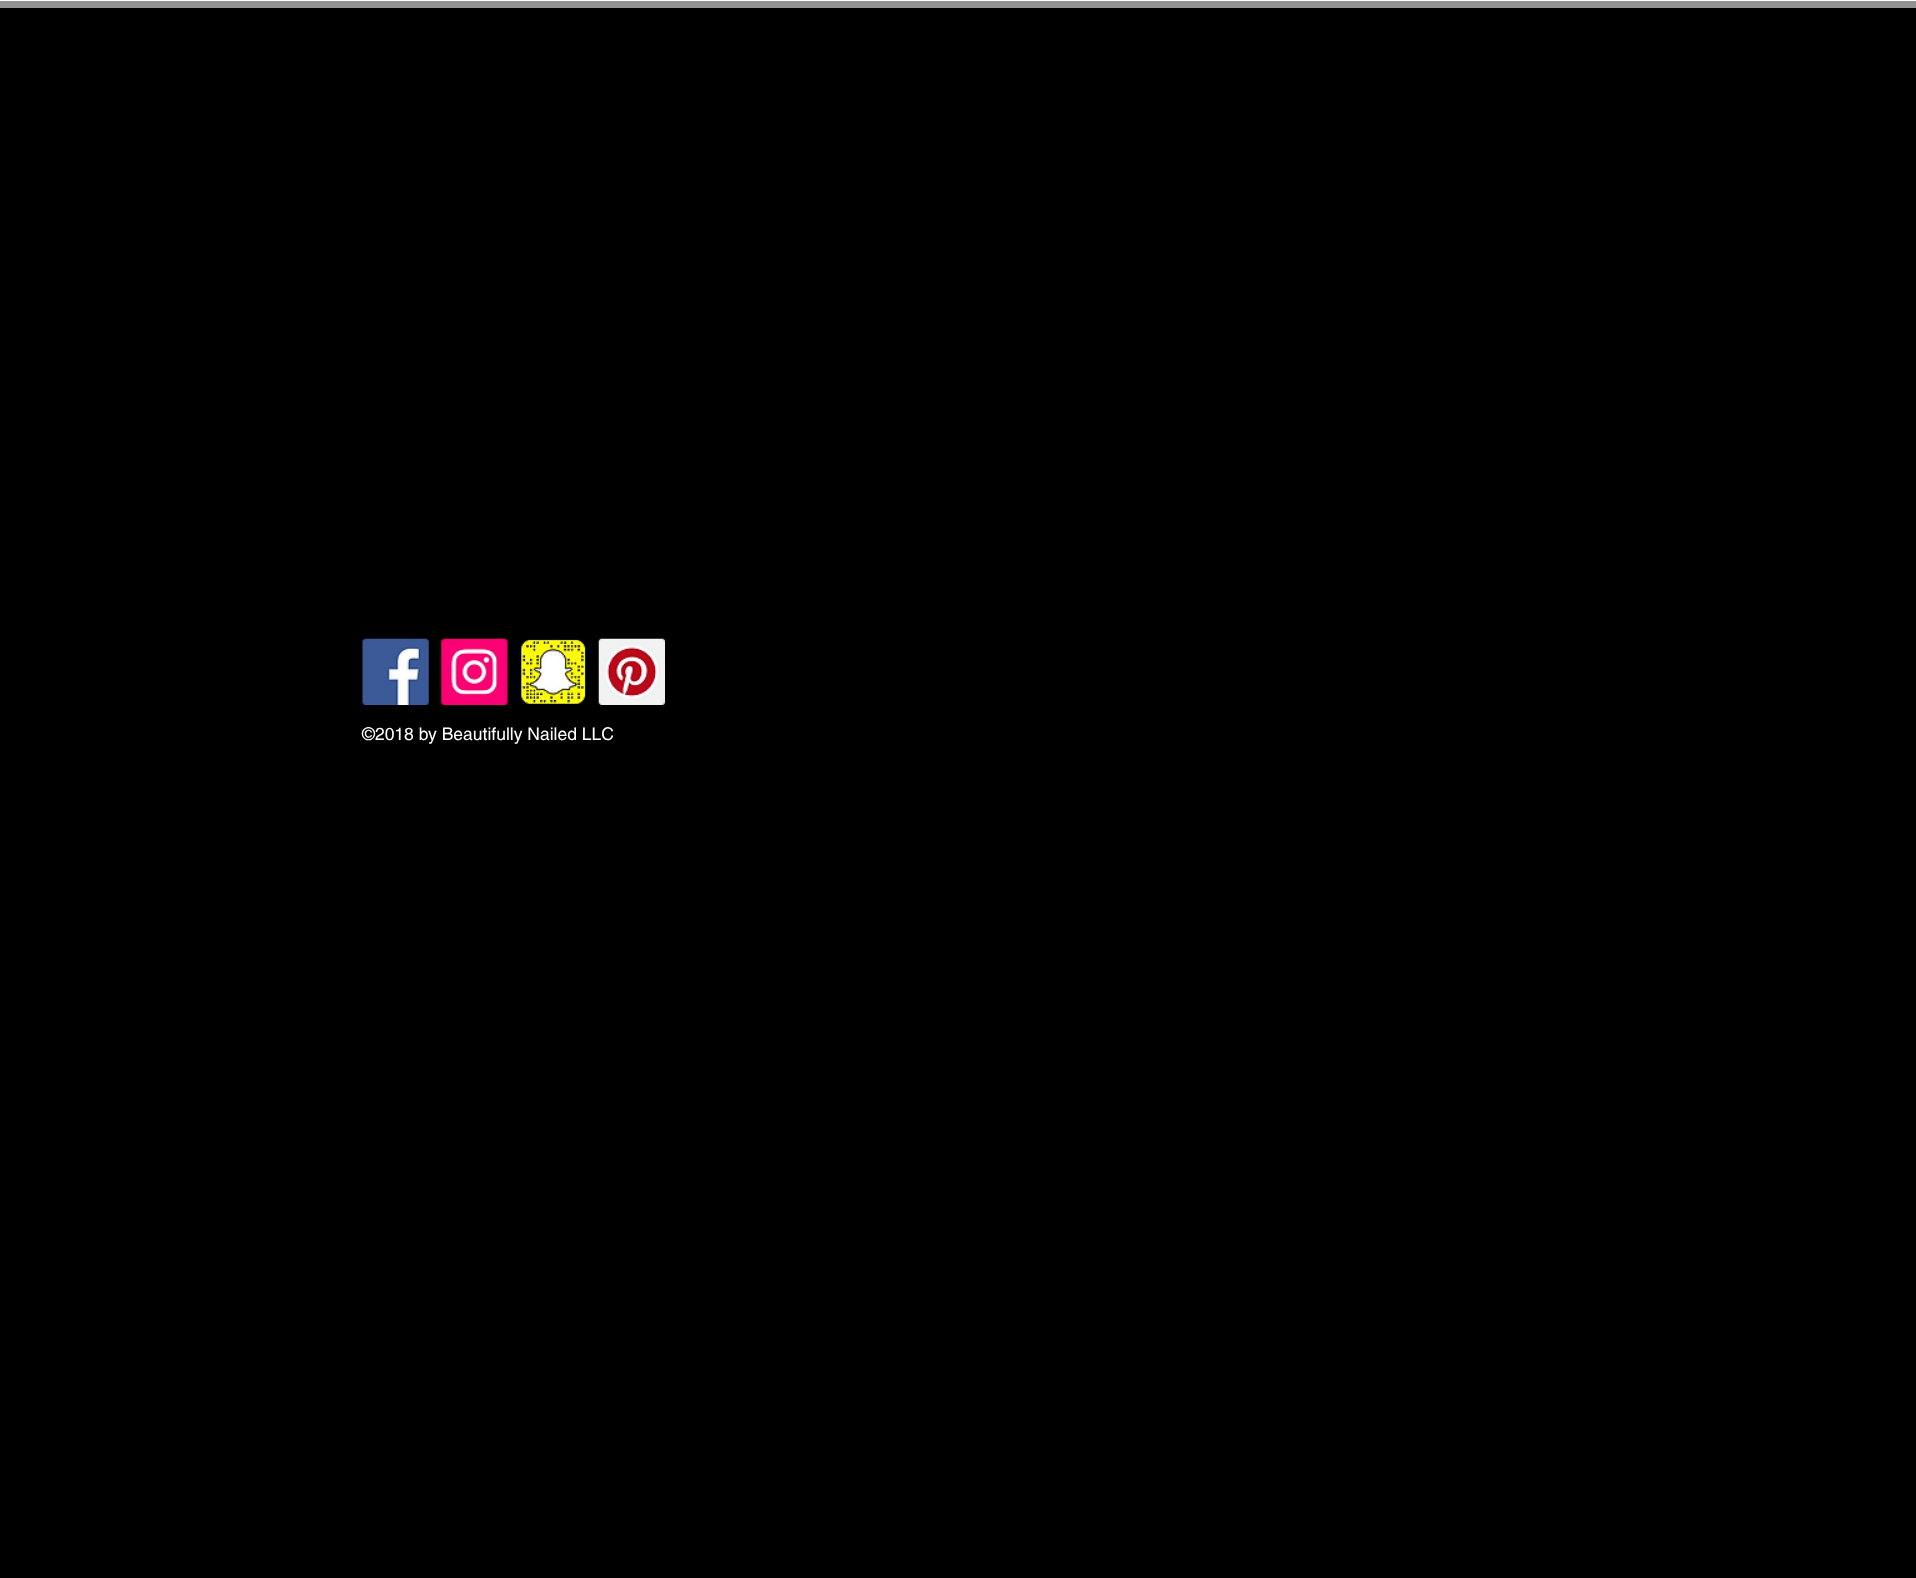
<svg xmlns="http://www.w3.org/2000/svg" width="1916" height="1578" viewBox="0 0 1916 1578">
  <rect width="100%" height="100%" fill="#000"/>
  <path d="M0 0h1916v1H0z" fill="#fff"/>
  <path d="M0 1h1916v7H0z" fill="#929292"/>
  <image x="362" y="638" width="67" height="67" href="img/1.png"/>
  <image x="441" y="638" width="67" height="67" href="img/2.png"/>
  <image x="521" y="639" width="65" height="65" href="img/3.png"/>
  <image x="598" y="638" width="67" height="67" href="img/4.png"/>
  <text x="362" y="740" font-family="helvetica" font-size="17.5" fill="#fff">©2018 by Beautifully Nailed LLC</text>
</svg>
